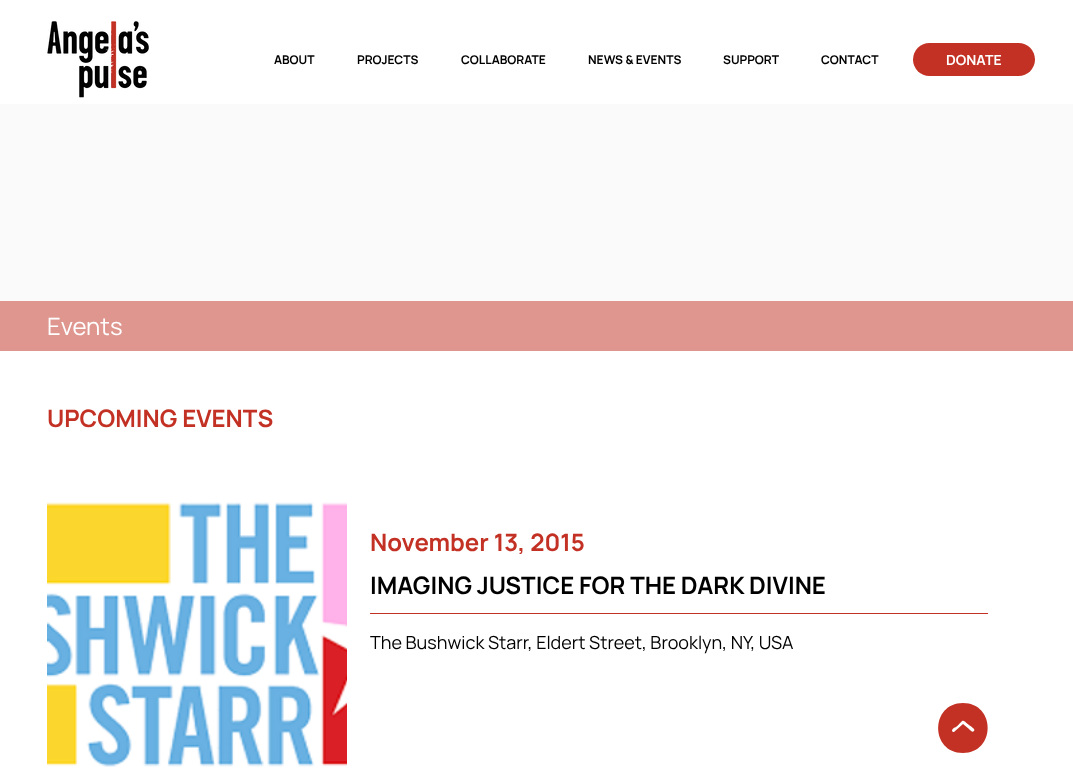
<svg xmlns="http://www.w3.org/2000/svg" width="1073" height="773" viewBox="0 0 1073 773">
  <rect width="100%" height="100%" fill="#fff"/>
  <image x="47" y="21" width="102" height="77" href="img/1.png"/>
  <rect x="913" y="43" width="122" height="33" rx="16.5" fill="#c33124"/>
  <path d="M0 104h1073v197H0z" fill="#fafafa"/>
  <path d="M0 301h1073v50H0z" fill="#df968f"/>
  <image x="47" y="502" width="300" height="265" href="img/2.png"/>
  <path d="M370 613h618v1H370z" fill="#c33124"/>
  <path d="M963 703C930 703 930 753 963 753C996 753 996 703 963 703ZM974 731C972 733 970 730 969 729L963 724L954 732H953C950 730 955 727 956 727C964 720 961 718 969 725C970 726 976 729 974 731Z" fill="#c33124"/>
  <g font-family="Manrope" font-size="12" font-weight="bold" fill="#000">
    <text x="274" y="64">ABOUT</text>
    <text x="357" y="64">PROJECTS</text>
    <text x="461" y="64">COLLABORATE</text>
    <text x="588" y="64">NEWS &amp; EVENTS</text>
    <text x="723" y="64">SUPPORT</text>
    <text x="821" y="64">CONTACT</text>
  </g>
  <text x="946" y="65" font-family="Manrope" font-size="14" font-weight="bold" fill="#fff">DONATE</text>
  <text x="47" y="335" font-family="Manrope" font-size="24" fill="#fff">Events</text>
  <g font-family="Manrope" font-size="24" font-weight="bold" fill="#c33124">
    <text x="47" y="427">UPCOMING EVENTS</text>
    <text x="370" y="551">November 13, 2015</text>
  </g>
  <text x="370" y="594" font-family="Manrope" font-size="24" font-weight="bold" fill="#000">IMAGING JUSTICE FOR THE DARK DIVINE</text>
  <text x="370" y="649" font-family="Manrope" font-size="18" fill="#000">The Bushwick Starr, Eldert Street, Brooklyn, NY, USA</text>
</svg>
